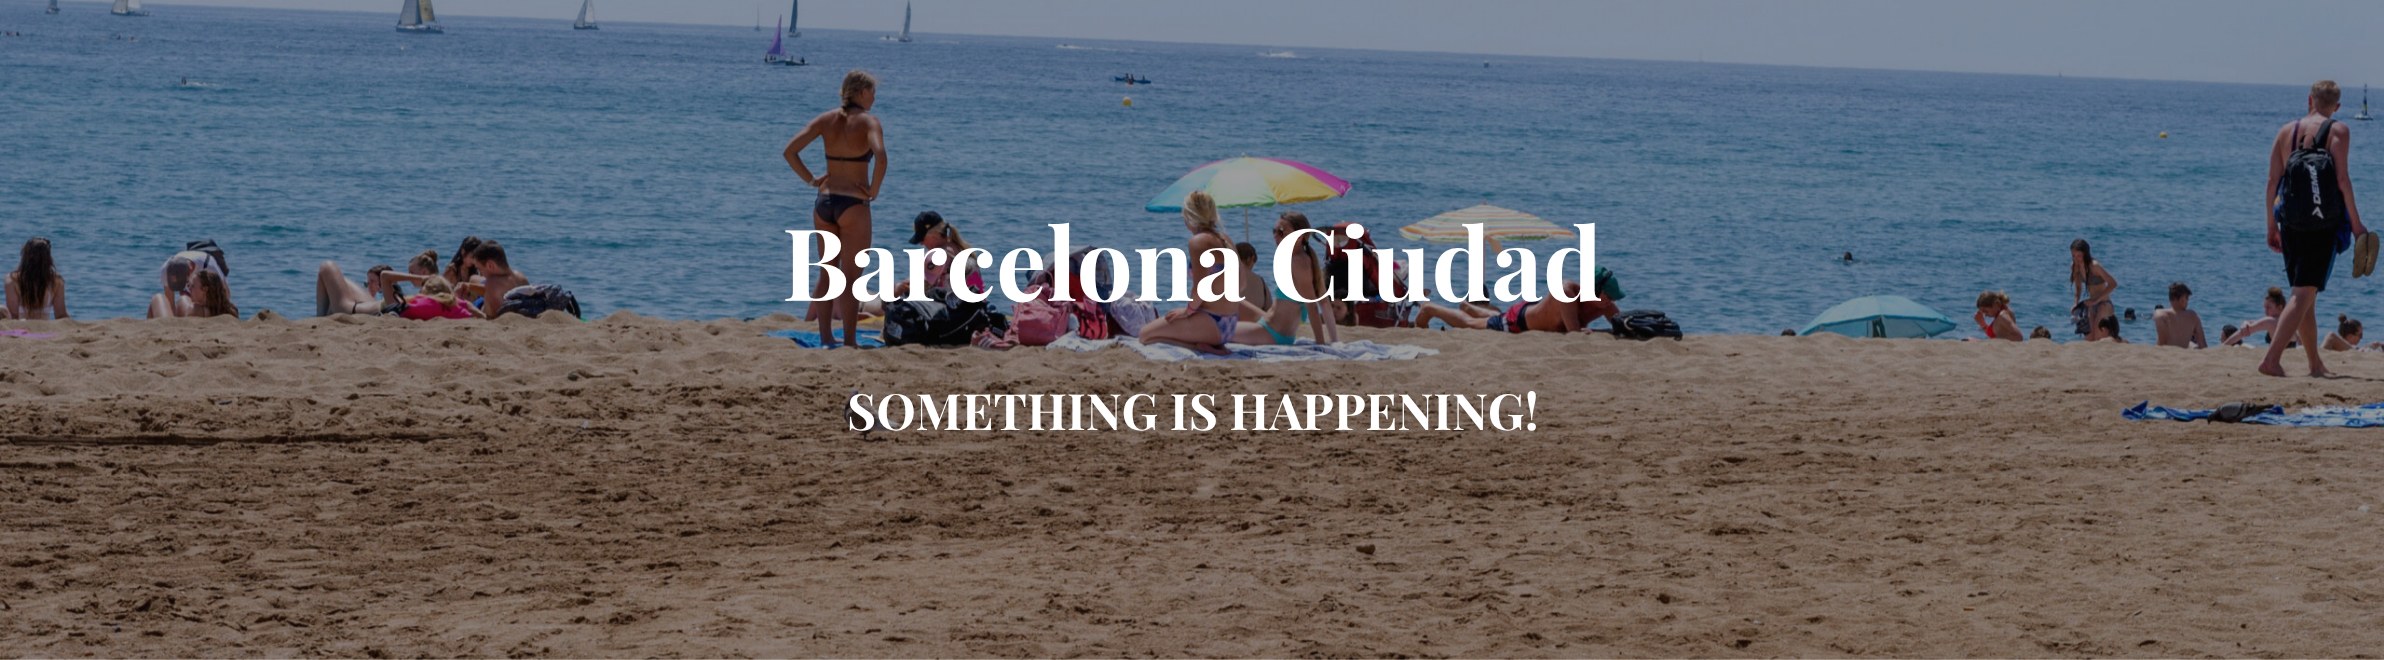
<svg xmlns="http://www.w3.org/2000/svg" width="2384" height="660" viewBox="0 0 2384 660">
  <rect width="100%" height="100%" fill="#fff"/>
  <image x="0" y="0" width="2384" height="660" href="img/1.png"/>
  <text x="782" y="301" font-family="Playfair Display" font-size="100" font-weight="bold" fill="#fff">Barcelona Ciudad</text>
  <text x="847" y="430" font-family="Playfair Display" font-size="50" font-weight="bold" fill="#fff">SOMETHING IS HAPPENING!</text>
</svg>
